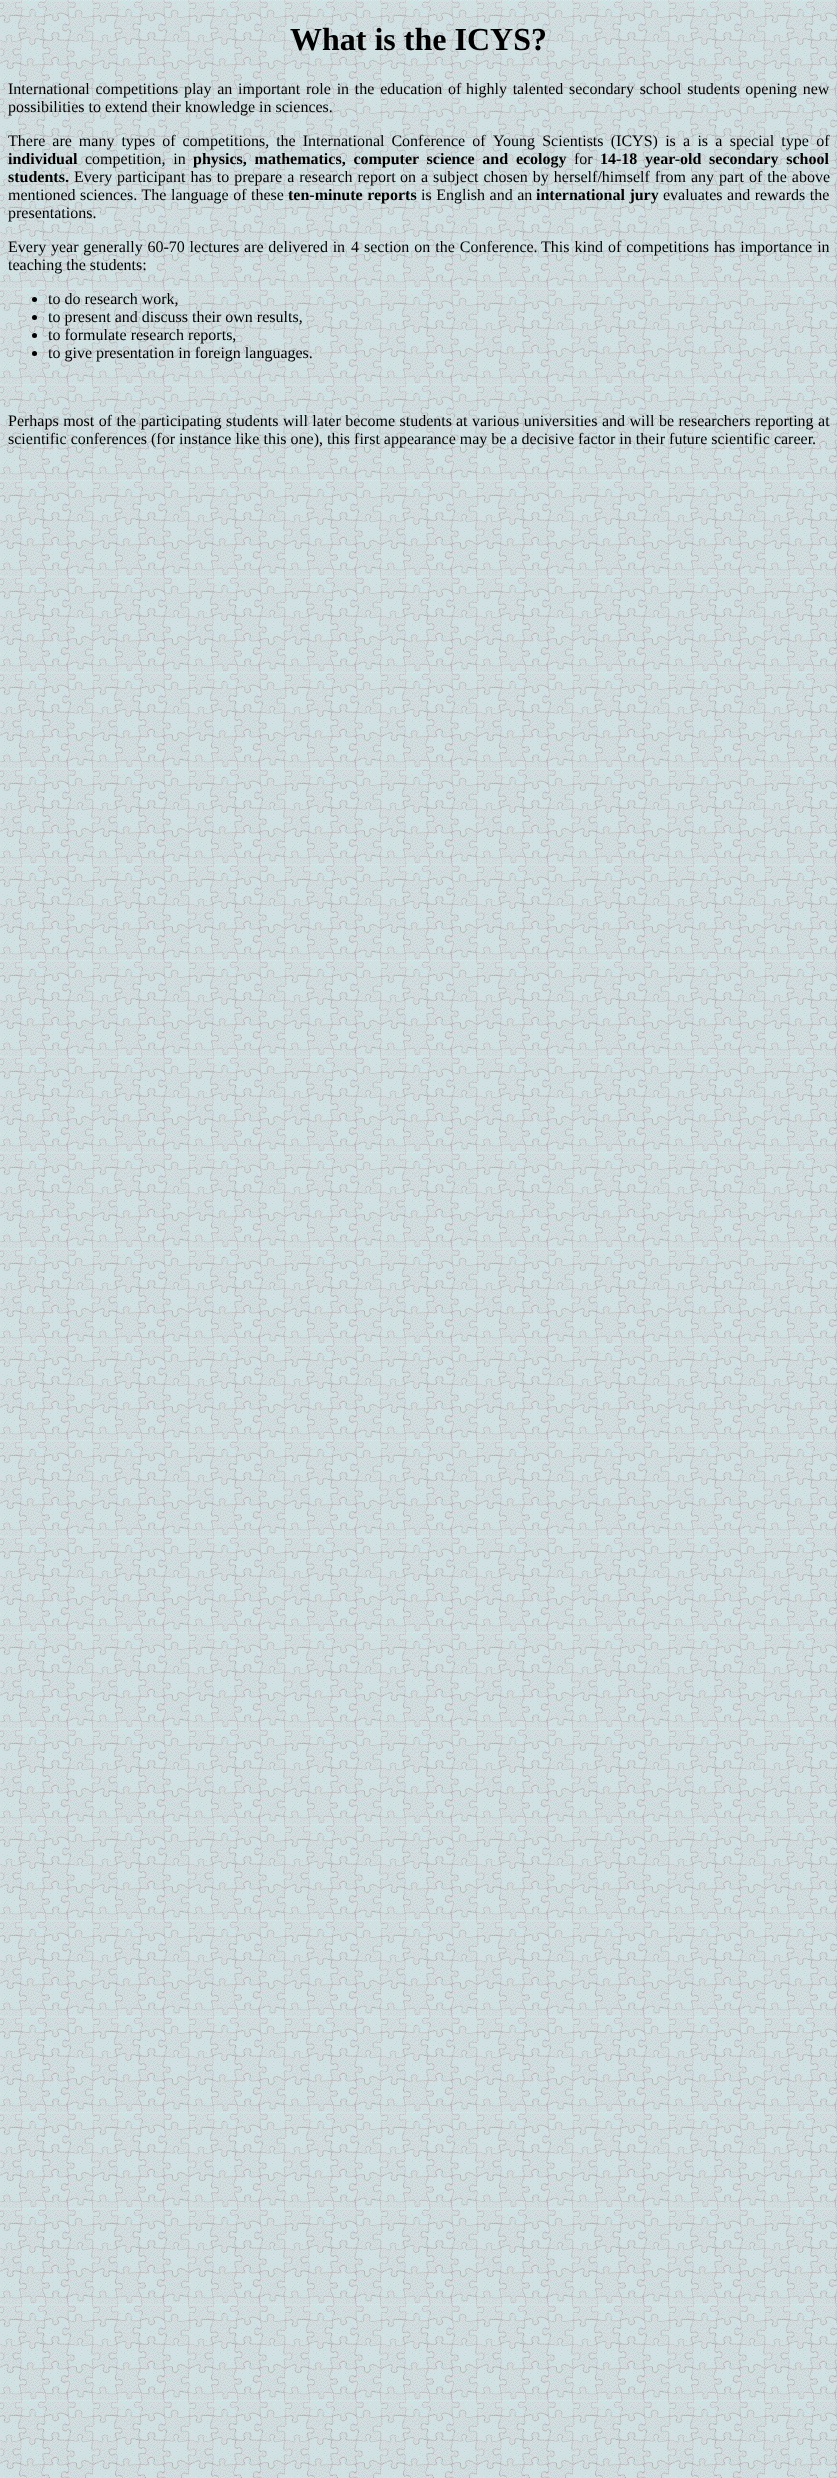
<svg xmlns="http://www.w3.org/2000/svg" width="837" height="2478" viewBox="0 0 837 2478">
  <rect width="100%" height="100%" fill="#fff"/>
  <image x="0" y="0" width="837" height="2478" href="img/1.png"/>
  <circle cx="34.5" cy="299.5" r="2.5" fill="#000"/>
  <circle cx="34.5" cy="317.5" r="2.5" fill="#000"/>
  <circle cx="34.5" cy="335.5" r="2.5" fill="#000"/>
  <circle cx="34.5" cy="353.5" r="2.5" fill="#000"/>
  <text x="290" y="50" font-family="Liberation Serif" font-size="32" font-weight="bold" fill="#000">What is the ICYS?</text>
  <g font-family="Liberation Serif" font-size="16" fill="#000">
    <text x="8" y="94" word-spacing="1.75">International competitions play an important role in the education of</text>
    <text x="466" y="94" word-spacing="1.75">highly talented secondary school students opening new</text>
    <text x="8" y="112">possibilities to extend their knowledge in sciences.</text>
    <text x="8" y="146" word-spacing="3">There are many types of competitions, the International Conference of</text>
    <text x="493" y="146" word-spacing="3.25">Young Scientists (ICYS) is a is a special type of</text>
  </g>
  <text x="8" y="164" font-family="Liberation Serif" font-size="16" font-weight="bold" fill="#000">individual</text>
  <text x="85" y="164" word-spacing="3.75" font-family="Liberation Serif" font-size="16" fill="#000">competition, in</text>
  <text x="193" y="164" word-spacing="3.75" font-family="Liberation Serif" font-size="16" font-weight="bold" fill="#000">physics, mathematics, computer science and ecology</text>
  <text x="574" y="164" font-family="Liberation Serif" font-size="16" fill="#000">for</text>
  <g font-family="Liberation Serif" font-size="16" font-weight="bold" fill="#000">
    <text x="600" y="164" word-spacing="3.75">14-18 year-old secondary school</text>
    <text x="8" y="182">students.</text>
  </g>
  <g font-family="Liberation Serif" font-size="16" fill="#000">
    <text x="74" y="182">Every</text>
    <text x="117" y="182" word-spacing="1">participant has to prepare a research report</text>
    <text x="400" y="182" word-spacing="1">on a subject chosen by herself/himself from any part of the above</text>
    <text x="8" y="200" word-spacing="0.5">mentioned sciences. The language of these</text>
  </g>
  <text x="288" y="200" word-spacing="0.5" font-family="Liberation Serif" font-size="16" font-weight="bold" fill="#000">ten-minute reports</text>
  <text x="421" y="200" word-spacing="0.5" font-family="Liberation Serif" font-size="16" fill="#000">is English and an</text>
  <text x="536" y="200" word-spacing="0.5" font-family="Liberation Serif" font-size="16" font-weight="bold" fill="#000">international jury</text>
  <g font-family="Liberation Serif" font-size="16" fill="#000">
    <text x="663" y="200" word-spacing="0.5">evaluates and rewards the</text>
    <text x="8" y="218">presentations.</text>
    <text x="8" y="252" word-spacing="0.75">Every year generally 60-70 lectures are delivered in</text>
    <text x="351" y="252" word-spacing="1">4 section on the Conference.</text>
    <text x="541" y="252" word-spacing="1">This kind of competitions has importance in</text>
    <text x="8" y="270">teaching the students:</text>
    <text x="48" y="304">to do research work,</text>
    <text x="48" y="322">to present and discuss their own results,</text>
    <text x="48" y="340">to formulate research reports,</text>
    <text x="48" y="358">to give presentation in foreign languages.</text>
    <text x="8" y="426" word-spacing="0.5">Perhaps most of the participating students will later become students</text>
    <text x="456" y="426" word-spacing="0.5">at various universities and will be researchers reporting at</text>
    <text x="8" y="444">scientific conferences (for instance like this one), this first appearance may be a decisive factor in their future scientific career.</text>
  </g>
</svg>
